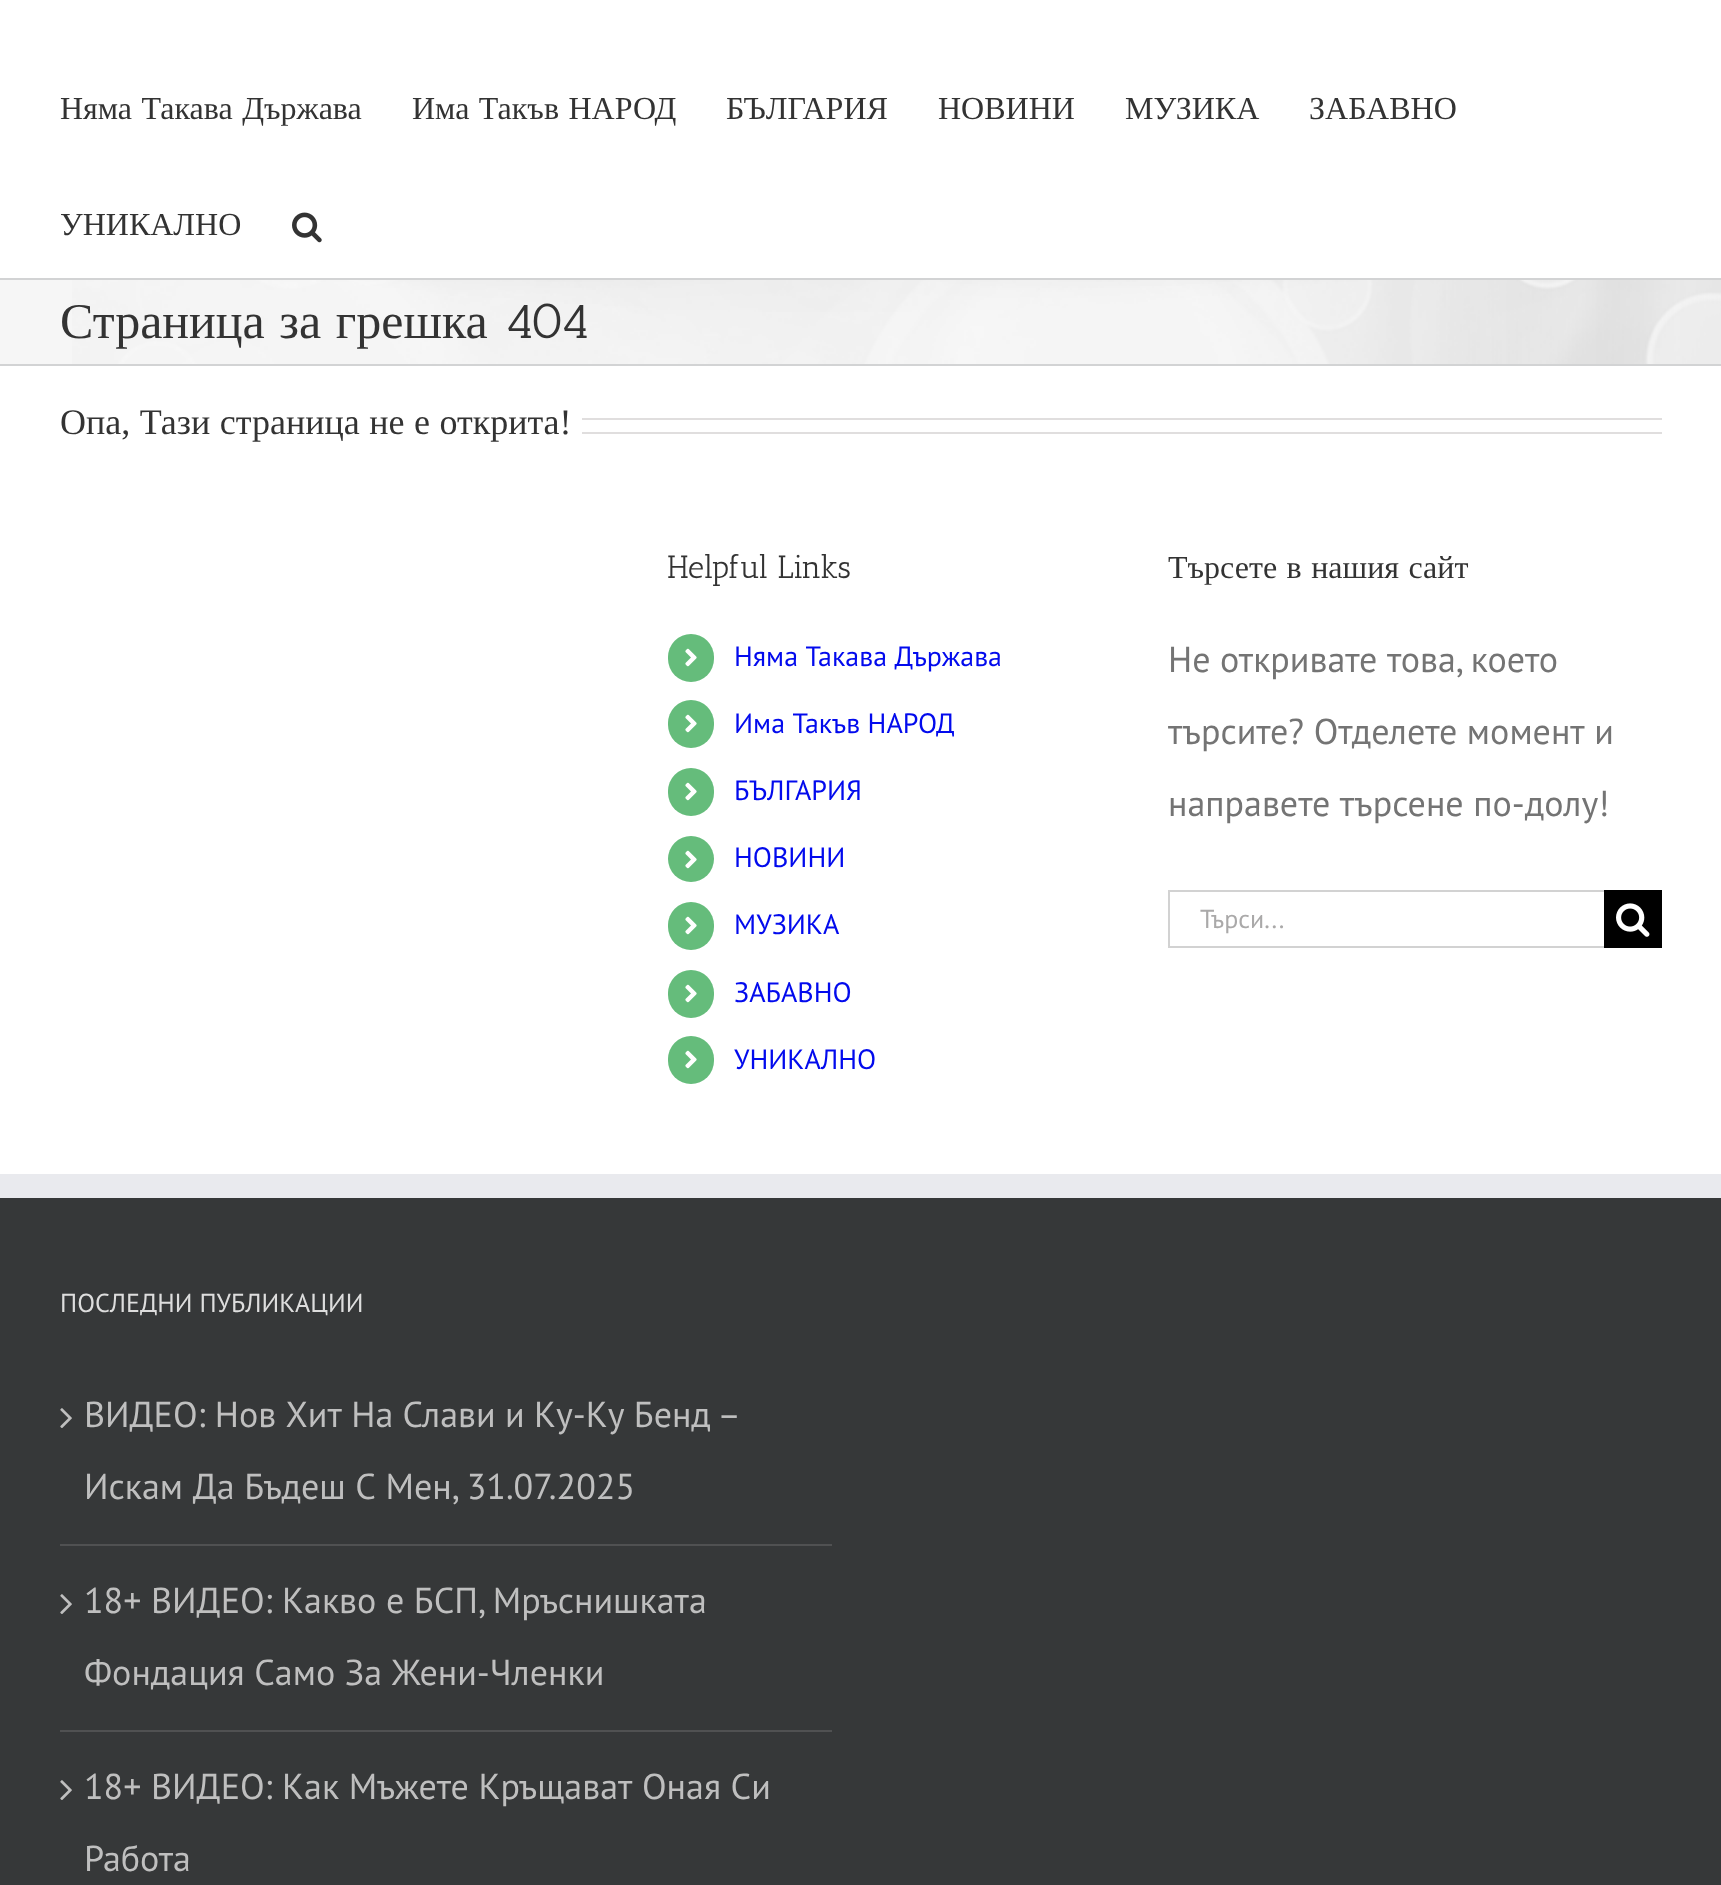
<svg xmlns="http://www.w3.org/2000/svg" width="1721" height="1885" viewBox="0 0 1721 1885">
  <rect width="100%" height="100%" fill="#fff"/>
  <image x="292" y="212" width="30" height="31" href="img/1.png"/>
  <path d="M0 280h1721v84H0z" fill="#f6f6f6"/>
  <image x="72" y="280" width="1649" height="84" href="img/2.png"/>
  <path d="M0 278h1721v2H0z" fill="#d2d3d4"/>
  <path d="M0 364h1721v2H0z" fill="#d2d3d4"/>
  <path d="M582 418h1080v2H582z" fill="#e0dede"/>
  <path d="M582 432h1080v2H582z" fill="#e0dede"/>
  <rect x="668" y="634" width="46" height="48" rx="23" fill="#65bc7b"/>
  <image x="685" y="648" width="12" height="19" href="img/3.png"/>
  <rect x="668" y="700" width="46" height="48" rx="23" fill="#65bc7b"/>
  <image x="685" y="714" width="12" height="19" href="img/3.png"/>
  <rect x="668" y="768" width="46" height="48" rx="23" fill="#65bc7b"/>
  <image x="685" y="782" width="12" height="19" href="img/3.png"/>
  <circle cx="691" cy="859" r="23" fill="#65bc7b"/>
  <image x="685" y="850" width="12" height="19" href="img/3.png"/>
  <rect x="668" y="902" width="46" height="48" rx="23" fill="#65bc7b"/>
  <image x="685" y="916" width="12" height="19" href="img/3.png"/>
  <rect x="668" y="970" width="46" height="48" rx="23" fill="#65bc7b"/>
  <image x="685" y="984" width="12" height="19" href="img/3.png"/>
  <rect x="668" y="1036" width="46" height="48" rx="23" fill="#65bc7b"/>
  <image x="685" y="1050" width="12" height="19" href="img/3.png"/>
  <path d="M1168 890h436v2H1168z" fill="#d2d2d2"/>
  <path d="M1168 946h436v2H1168z" fill="#d2d2d2"/>
  <path d="M1168 890h2v58H1168z" fill="#d2d2d2"/>
  <path d="M1604 890h58v58H1604z" fill="#000"/>
  <image x="1616" y="903" width="34" height="34" href="img/4.png"/>
  <path d="M0 1198h1721v687H0z" fill="#363839"/>
  <path d="M0 1174h1721v24H0z" fill="#e9eaee"/>
  <path d="M60 1544h772v2H60z" fill="#505152"/>
  <image x="60" y="1408" width="12" height="20" href="img/5.png"/>
  <path d="M60 1730h772v2H60z" fill="#505152"/>
  <image x="60" y="1594" width="12" height="20" href="img/5.png"/>
  <image x="60" y="1780" width="12" height="20" href="img/5.png"/>
  <g font-family="Liberation Serif" font-size="32" fill="#333">
    <text x="60" y="119" word-spacing="1.5">Няма Такава Държава</text>
    <text x="412" y="119" word-spacing="1.5">Има Такъв НАРОД</text>
    <text x="726" y="119">БЪЛГАРИЯ</text>
    <text x="938" y="119">НОВИНИ</text>
    <text x="1125" y="119">МУЗИКА</text>
    <text x="1309" y="119">ЗАБАВНО</text>
    <text x="60" y="235">УНИКАЛНО</text>
  </g>
  <text x="60" y="338" word-spacing="2" font-family="Liberation Serif" font-size="50" fill="#333">Страница за грешка</text>
  <text x="504" y="338" font-family="Antic Slab" font-size="50" fill="#333">404</text>
  <text x="60" y="434" word-spacing="0.5" font-family="Liberation Serif" font-size="36" fill="#333">Опа, Тази страница не е открита!</text>
  <text x="667" y="578" font-family="Antic Slab" font-size="32" fill="#333">Helpful Links</text>
  <g font-family="PT Sans" font-size="28" fill="#020aed">
    <text x="734" y="666">Няма Такава Държава</text>
    <text x="734" y="733">Има Такъв НАРОД</text>
    <text x="734" y="800">БЪЛГАРИЯ</text>
    <text x="734" y="867">НОВИНИ</text>
    <text x="734" y="934">МУЗИКА</text>
    <text x="734" y="1002">ЗАБАВНО</text>
    <text x="734" y="1069">УНИКАЛНО</text>
  </g>
  <text x="1168" y="578" word-spacing="1.5" font-family="Liberation Serif" font-size="32" fill="#333">Търсете в нашия сайт</text>
  <g font-family="PT Sans" font-size="36" fill="#747474">
    <text x="1168" y="672">Не откривате това, което</text>
    <text x="1168" y="744">търсите? Отделете момент и</text>
    <text x="1168" y="816">направете търсене по-долу!</text>
  </g>
  <text x="1200" y="928" font-family="PT Sans" font-size="26" fill="#aaa9a9">Търси...</text>
  <text x="60" y="1312" font-family="PT Sans" font-size="26" fill="#ddd">ПОСЛЕДНИ ПУБЛИКАЦИИ</text>
  <g font-family="PT Sans" font-size="36" fill="#bfbfbf">
    <text x="84" y="1427" word-spacing="-0.25">ВИДЕО: Нов Хит На Слави и Ку-Ку Бенд –</text>
    <text x="84" y="1499">Искам Да Бъдеш С Мен, 31.07.2025</text>
    <text x="84" y="1613">18+ ВИДЕО: Какво е БСП, Мръснишката</text>
    <text x="84" y="1685">Фондация Само За Жени-Членки</text>
    <text x="84" y="1799">18+ ВИДЕО: Как Мъжете Кръщават Оная Си</text>
    <text x="84" y="1871">Работа</text>
  </g>
</svg>
